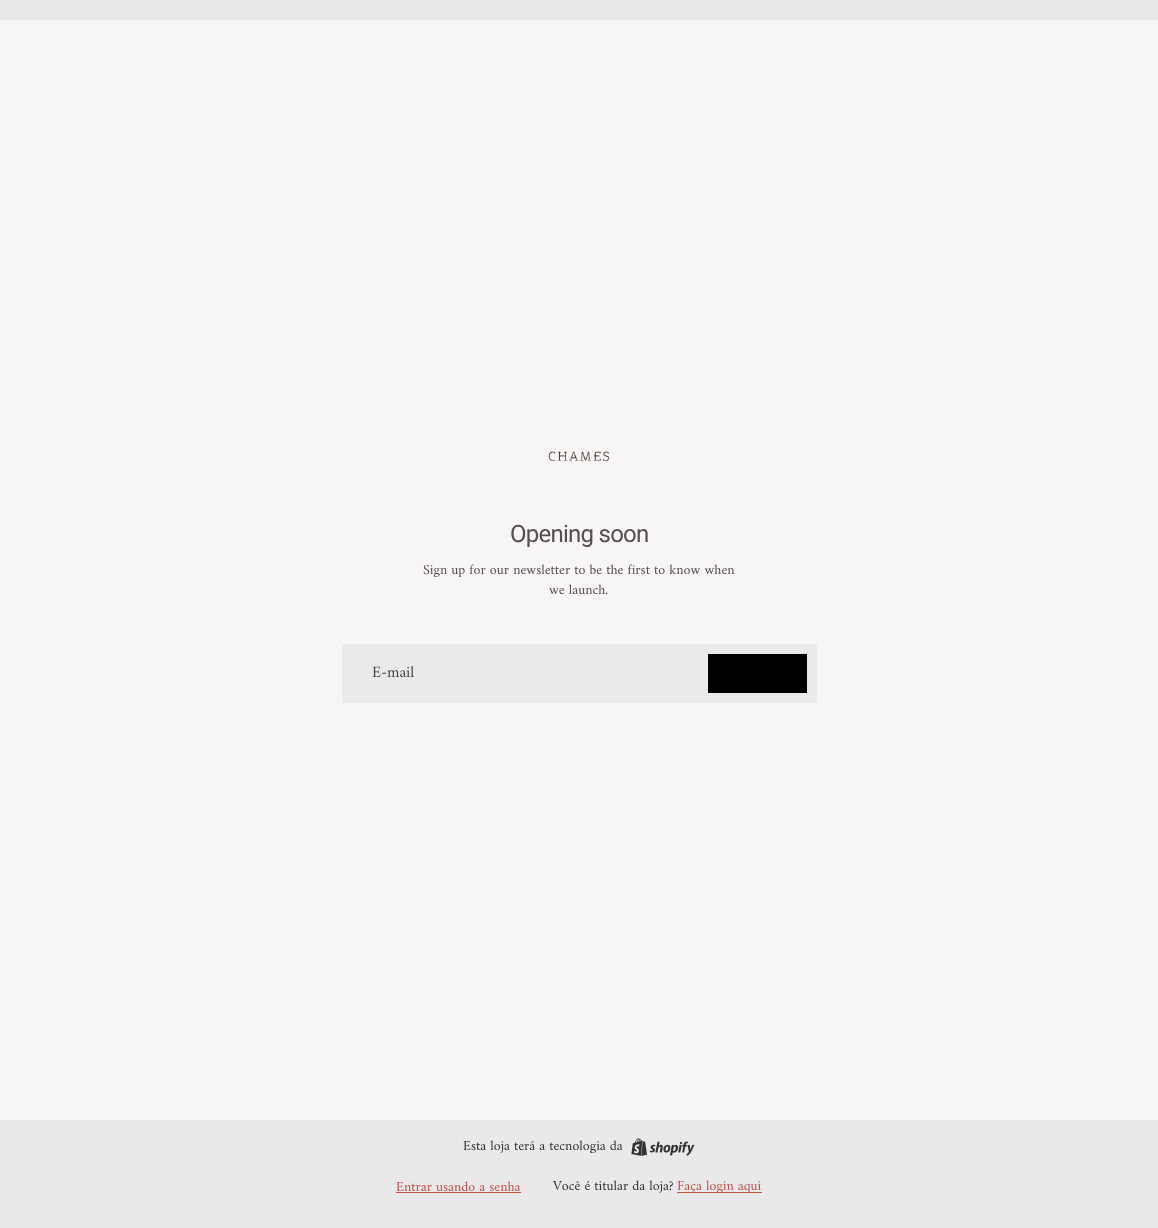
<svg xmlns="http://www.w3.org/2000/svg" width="1158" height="1228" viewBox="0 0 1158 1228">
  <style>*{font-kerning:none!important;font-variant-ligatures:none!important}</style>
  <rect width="100%" height="100%" fill="#e9e9e9"/>
  <path d="M0 20h1158v1100H0z" fill="#f7f5f5"/>
  <image x="548" y="451" width="62" height="10" href="img/1.png"/>
  <path d="M342 644h475v59H342z" fill="#ebe9e9"/>
  <path d="M708 654h99v39H708z" fill="#000"/>
  <image x="631" y="1138" width="64" height="18" href="img/2.png"/>
  <path d="M396 1192h125v1H396z" fill="#c15045"/>
  <path d="M677 1192h85v1H677z" fill="#c15045"/>
  <text x="510" y="542" font-family="Roboto" font-size="24" letter-spacing="-0.75" fill="#564d4d">Opening soon</text>
  <g font-family="Amiri" font-size="14" fill="#564d4d">
    <text x="423" y="574">Sign up for our newsletter to be the first to know when</text>
    <text x="549" y="594">we launch.</text>
  </g>
  <text x="372" y="677" font-family="Amiri" font-size="16" fill="#474646">E-mail</text>
  <text x="463" y="1150" font-family="Amiri" font-size="14" fill="#353131">Esta loja terá a tecnologia da</text>
  <text x="396" y="1191" font-family="Amiri" font-size="14" fill="#c15045">Entrar usando a senha</text>
  <text x="553" y="1190" font-family="Amiri" font-size="14" fill="#353131">Você é titular da loja?</text>
  <text x="677" y="1190" font-family="Amiri" font-size="14" fill="#c15045">Faça login aqui</text>
</svg>
